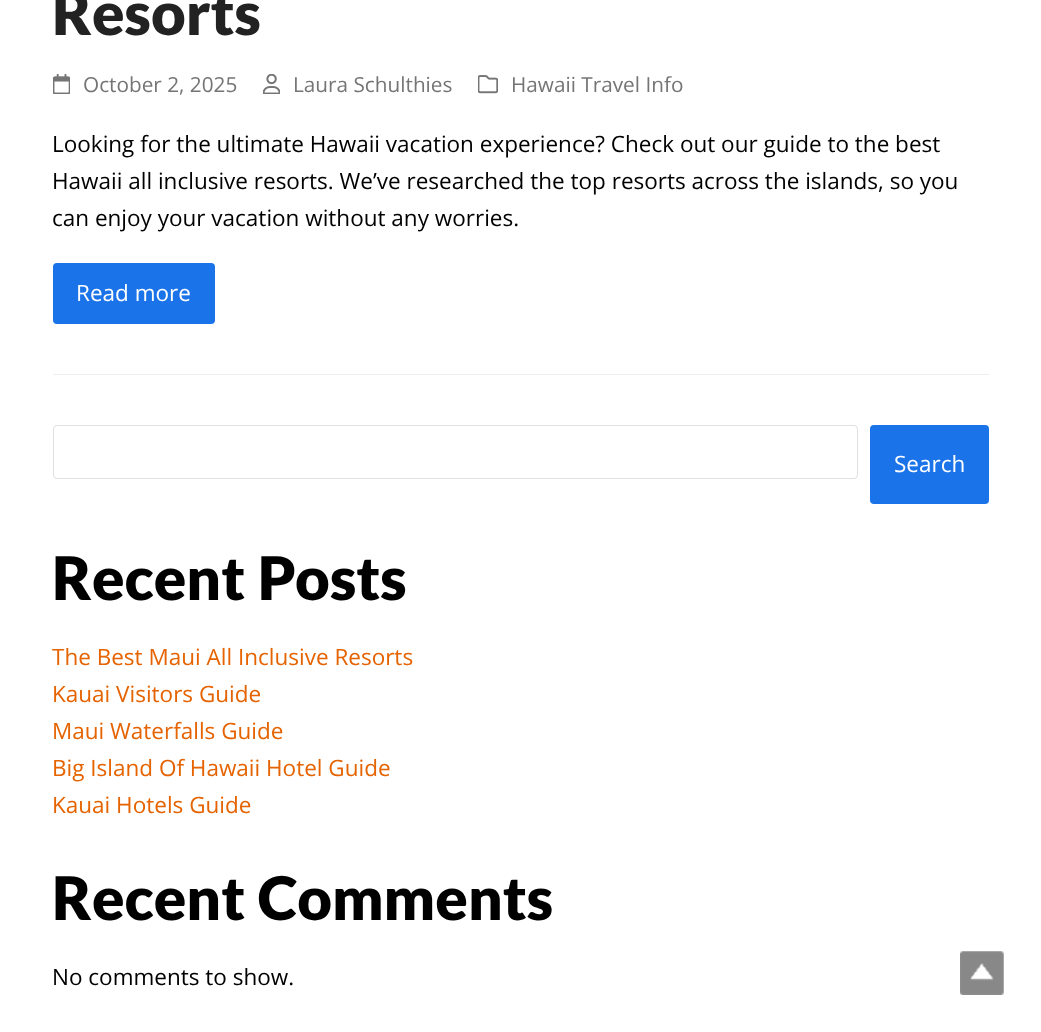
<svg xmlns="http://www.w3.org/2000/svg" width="1041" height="1032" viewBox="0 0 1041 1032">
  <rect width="100%" height="100%" fill="#fff"/>
  <image x="53" y="74" width="17" height="20" href="img/1.png"/>
  <image x="263" y="74" width="17" height="20" href="img/2.png"/>
  <image x="478" y="75" width="20" height="19" href="img/3.png"/>
  <rect x="53" y="263" width="162" height="61" rx="4" fill="#1a73e8"/>
  <path d="M53 374h936v1H53z" fill="#eee"/>
  <rect x="53.5" y="425.5" width="804" height="53" rx="3.5" fill="none" stroke="#e0e0e0"/>
  <rect x="870" y="425" width="119" height="79" rx="4" fill="#1a73e8"/>
  <image x="960" y="951" width="44" height="44" href="img/4.png"/>
  <text x="52" y="35" font-family="Lato" font-size="60" font-weight="900" fill="#222">Resorts</text>
  <g font-family="Open Sans" font-size="20.75" fill="#757575">
    <text x="83" y="92">October 2, 2025</text>
    <text x="293" y="92">Laura Schulthies</text>
    <text x="511" y="92">Hawaii Travel Info</text>
  </g>
  <g font-family="Open Sans" font-size="22.5" fill="#000">
    <text x="52" y="152">Looking for the ultimate Hawaii vacation experience? Check out our guide to the best</text>
    <text x="52" y="189">Hawaii all inclusive resorts. We’ve researched the top resorts across the islands, so you</text>
    <text x="52" y="226">can enjoy your vacation without any worries.</text>
  </g>
  <g font-family="Open Sans" font-size="22.5" fill="#fff">
    <text x="76" y="301">Read more</text>
    <text x="894" y="472">Search</text>
  </g>
  <text x="52" y="600" word-spacing="1" font-family="Lato" font-size="60" font-weight="900" fill="#000">Recent Posts</text>
  <g font-family="Open Sans" font-size="22.5" fill="#e56300">
    <text x="52" y="665">The Best Maui All Inclusive Resorts</text>
    <text x="52" y="702">Kauai Visitors Guide</text>
    <text x="52" y="739">Maui Waterfalls Guide</text>
    <text x="52" y="776">Big Island Of Hawaii Hotel Guide</text>
    <text x="52" y="813">Kauai Hotels Guide</text>
  </g>
  <text x="52" y="920" word-spacing="1" font-family="Lato" font-size="60" font-weight="900" fill="#000">Recent Comments</text>
  <text x="52" y="985" font-family="Open Sans" font-size="22.5" fill="#000">No comments to show.</text>
</svg>
